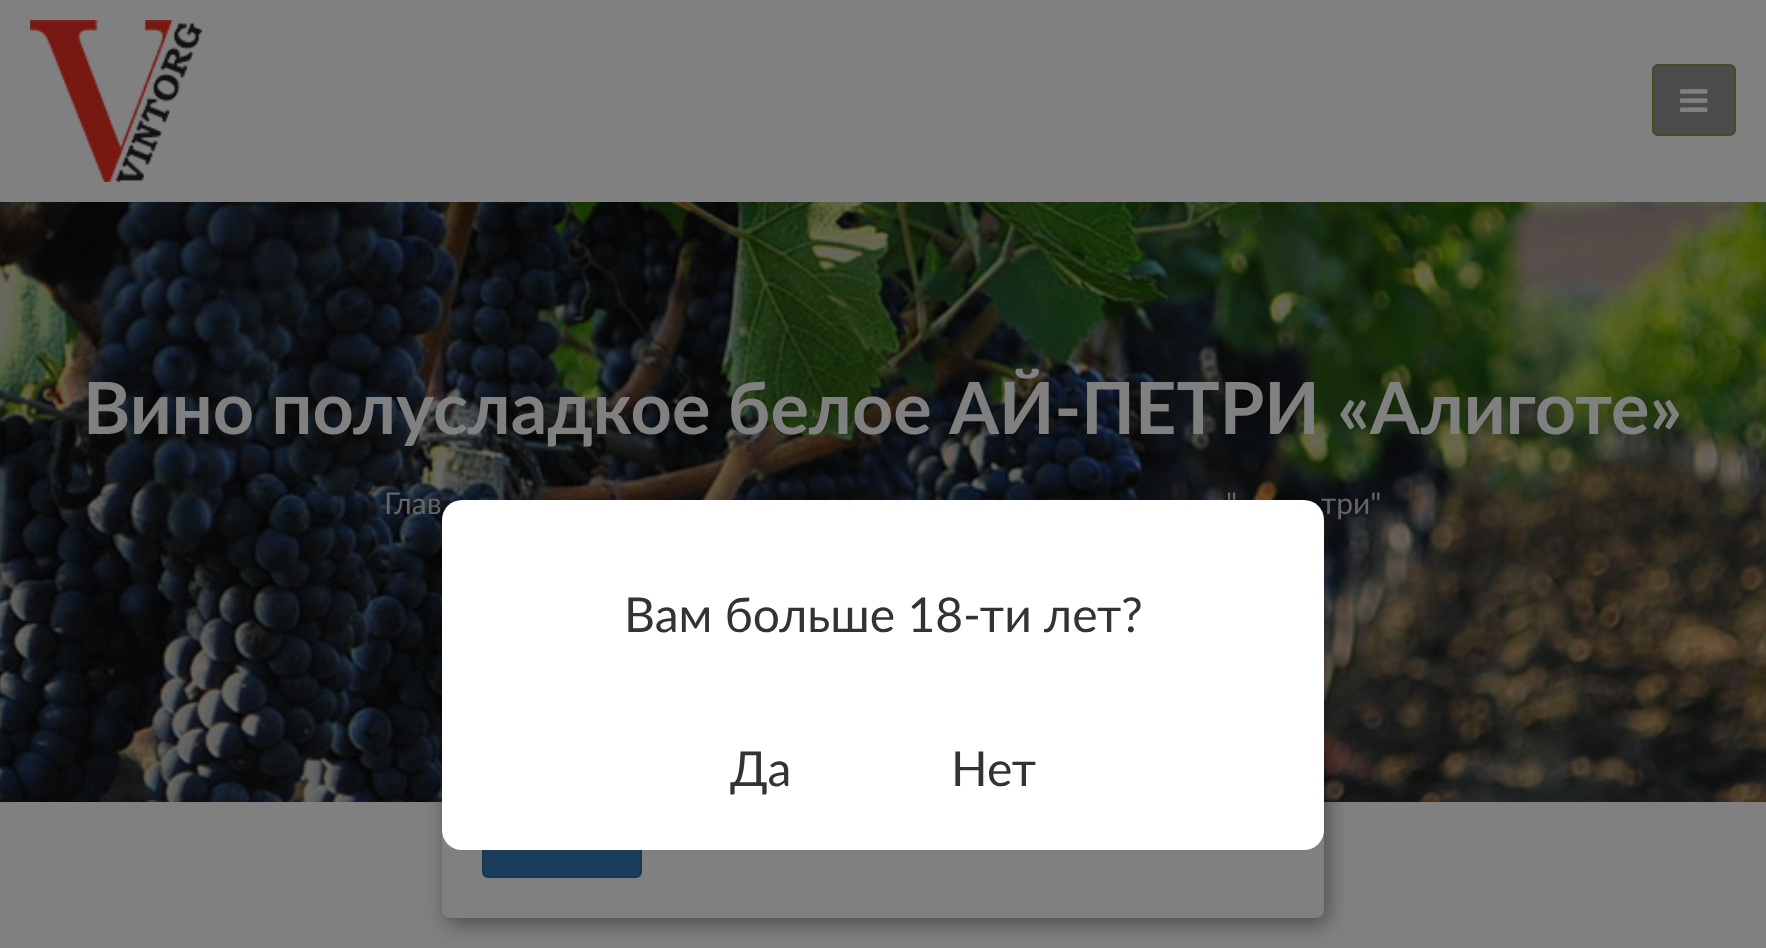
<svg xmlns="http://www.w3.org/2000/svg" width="1766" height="948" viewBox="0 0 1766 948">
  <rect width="100%" height="100%" fill="#808080"/>
  <image x="30" y="20" width="172" height="162" href="img/1.png"/>
  <rect x="1653" y="65" width="82" height="70" rx="5" fill="#4c4c4c" stroke="#454c22" stroke-width="2"/>
  <image x="1680" y="89" width="28" height="23" href="img/2.png"/>
  <image x="0" y="202" width="1766" height="600" href="img/3.png"/>
  <rect x="446" y="596" width="882" height="328" rx="8" fill="#00000066" filter="blur(10px)"/>
  <rect x="442" y="590" width="882" height="328" rx="8" fill="#808080"/>
  <rect x="483" y="819" width="158" height="58" rx="5" fill="#1a3d5c" stroke="#173752" stroke-width="2"/>
  <text x="83" y="434" font-family="Lato" font-size="72" font-weight="bold" fill="#808080">Вино полусладкое белое АЙ-ПЕТРИ «Алиготе»</text>
  <g font-family="Lato" font-size="30" fill="#656565">
    <text x="384" y="514">Глав</text>
    <text x="1226" y="514">"</text>
    <text x="1321" y="514">три"</text>
  </g>
  <rect x="442" y="500" width="882" height="350" rx="20" fill="#fff"/>
  <g font-family="Lato" font-size="48" fill="#333">
    <text x="624" y="632">Вам больше 18-ти лет?</text>
    <text x="730" y="786">Да</text>
    <text x="951" y="786">Нет</text>
  </g>
</svg>
